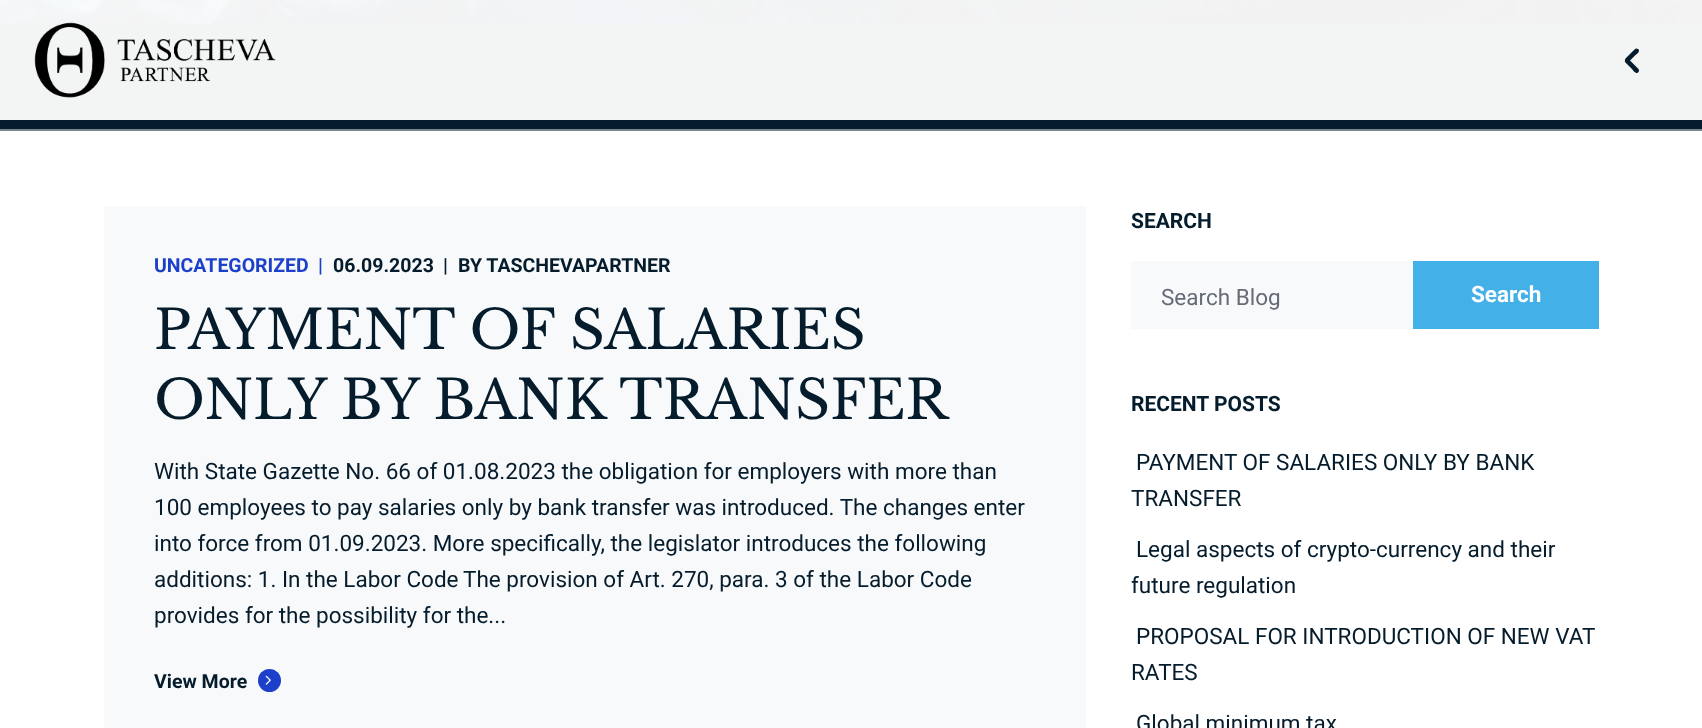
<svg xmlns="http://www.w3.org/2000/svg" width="1702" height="728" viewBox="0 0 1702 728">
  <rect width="100%" height="100%" fill="#fff"/>
  <path d="M0 120h1702v9H0z" fill="#051c2c"/>
  <path d="M0 24h1702v96H0z" fill="#f3f4f4"/>
  <path d="M0 129h1702v2H0z" fill="#7a868e"/>
  <image x="0" y="0" width="1702" height="24" href="img/1.png"/>
  <image x="34" y="22" width="242" height="76" href="img/2.png"/>
  <path d="M1625.5 58.5L1633.5 50.5C1634.5 49.5 1636 47.5 1638 49C1641 51 1636.5 54.5 1635 55.5L1628 62.5C1626 63.5 1624 60.5 1625.5 58.5Z" fill="#051c2c"/>
  <path d="M1629 59.5L1637 67.5C1638 68.5 1640 70 1638.5 72C1636.5 75 1633 70.5 1632 69L1625 62C1624 60 1627 58 1629 59.5Z" fill="#051c2c"/>
  <path d="M104 206h982v522H104z" fill="#f8f9fa"/>
  <circle cx="269.5" cy="680.5" r="11.5" fill="#1d40ca"/>
  <image x="265" y="675" width="6" height="10" href="img/3.png"/>
  <path d="M1131 261h282v68H1131z" fill="#f8f9fa"/>
  <path d="M1413 261h186v68H1413z" fill="#43b1e7"/>
  <g font-family="Roboto" font-size="19.5" font-weight="bold" fill="#1d40ca">
    <text x="154" y="272">UNCATEGORIZED</text>
    <text x="318" y="272">|</text>
  </g>
  <g font-family="Roboto" font-size="19.5" font-weight="bold" fill="#051c2c">
    <text x="333" y="272">06.09.2023</text>
    <text x="443" y="272">|</text>
    <text x="458" y="272">BY TASCHEVAPARTNER</text>
  </g>
  <g font-family="Libre Baskerville" font-size="54" fill="#051c2c">
    <text x="154" y="349">PAYMENT OF SALARIES</text>
    <text x="154" y="419">ONLY BY BANK TRANSFER</text>
  </g>
  <g font-family="Roboto" font-size="22.5" fill="#051c2c">
    <text x="154" y="479">With State Gazette No. 66 of 01.08.2023 the obligation for employers with more than</text>
    <text x="154" y="515">100 employees to pay salaries only by bank transfer was introduced. The changes enter</text>
    <text x="154" y="551">into force from 01.09.2023. More specifically, the legislator introduces the following</text>
    <text x="154" y="587">additions: 1. In the Labor Code</text>
    <text x="463" y="587">The provision of Art. 270, para. 3 of the Labor Code</text>
    <text x="154" y="623">provides for the possibility for the...</text>
  </g>
  <text x="154" y="688" font-family="Roboto" font-size="19.5" font-weight="bold" fill="#051c2c">View More</text>
  <text x="1131" y="228" font-family="Roboto" font-size="21" font-weight="bold" fill="#051c2c">SEARCH</text>
  <text x="1471" y="302" font-family="Roboto" font-size="22.5" font-weight="bold" fill="#fff">Search</text>
  <text x="1161" y="305" font-family="Roboto" font-size="22.5" fill="#666c77">Search Blog</text>
  <text x="1131" y="411" font-family="Roboto" font-size="21" font-weight="bold" fill="#051c2c">RECENT POSTS</text>
  <g font-family="Roboto" font-size="22.5" fill="#051c2c">
    <text x="1136" y="470">PAYMENT OF SALARIES ONLY BY BANK</text>
    <text x="1131" y="506">TRANSFER</text>
    <text x="1136" y="557">Legal aspects of crypto-currency and their</text>
    <text x="1131" y="593">future regulation</text>
    <text x="1136" y="644">PROPOSAL FOR INTRODUCTION OF NEW VAT</text>
    <text x="1131" y="680">RATES</text>
    <text x="1136" y="731">Global minimum tax</text>
  </g>
</svg>
